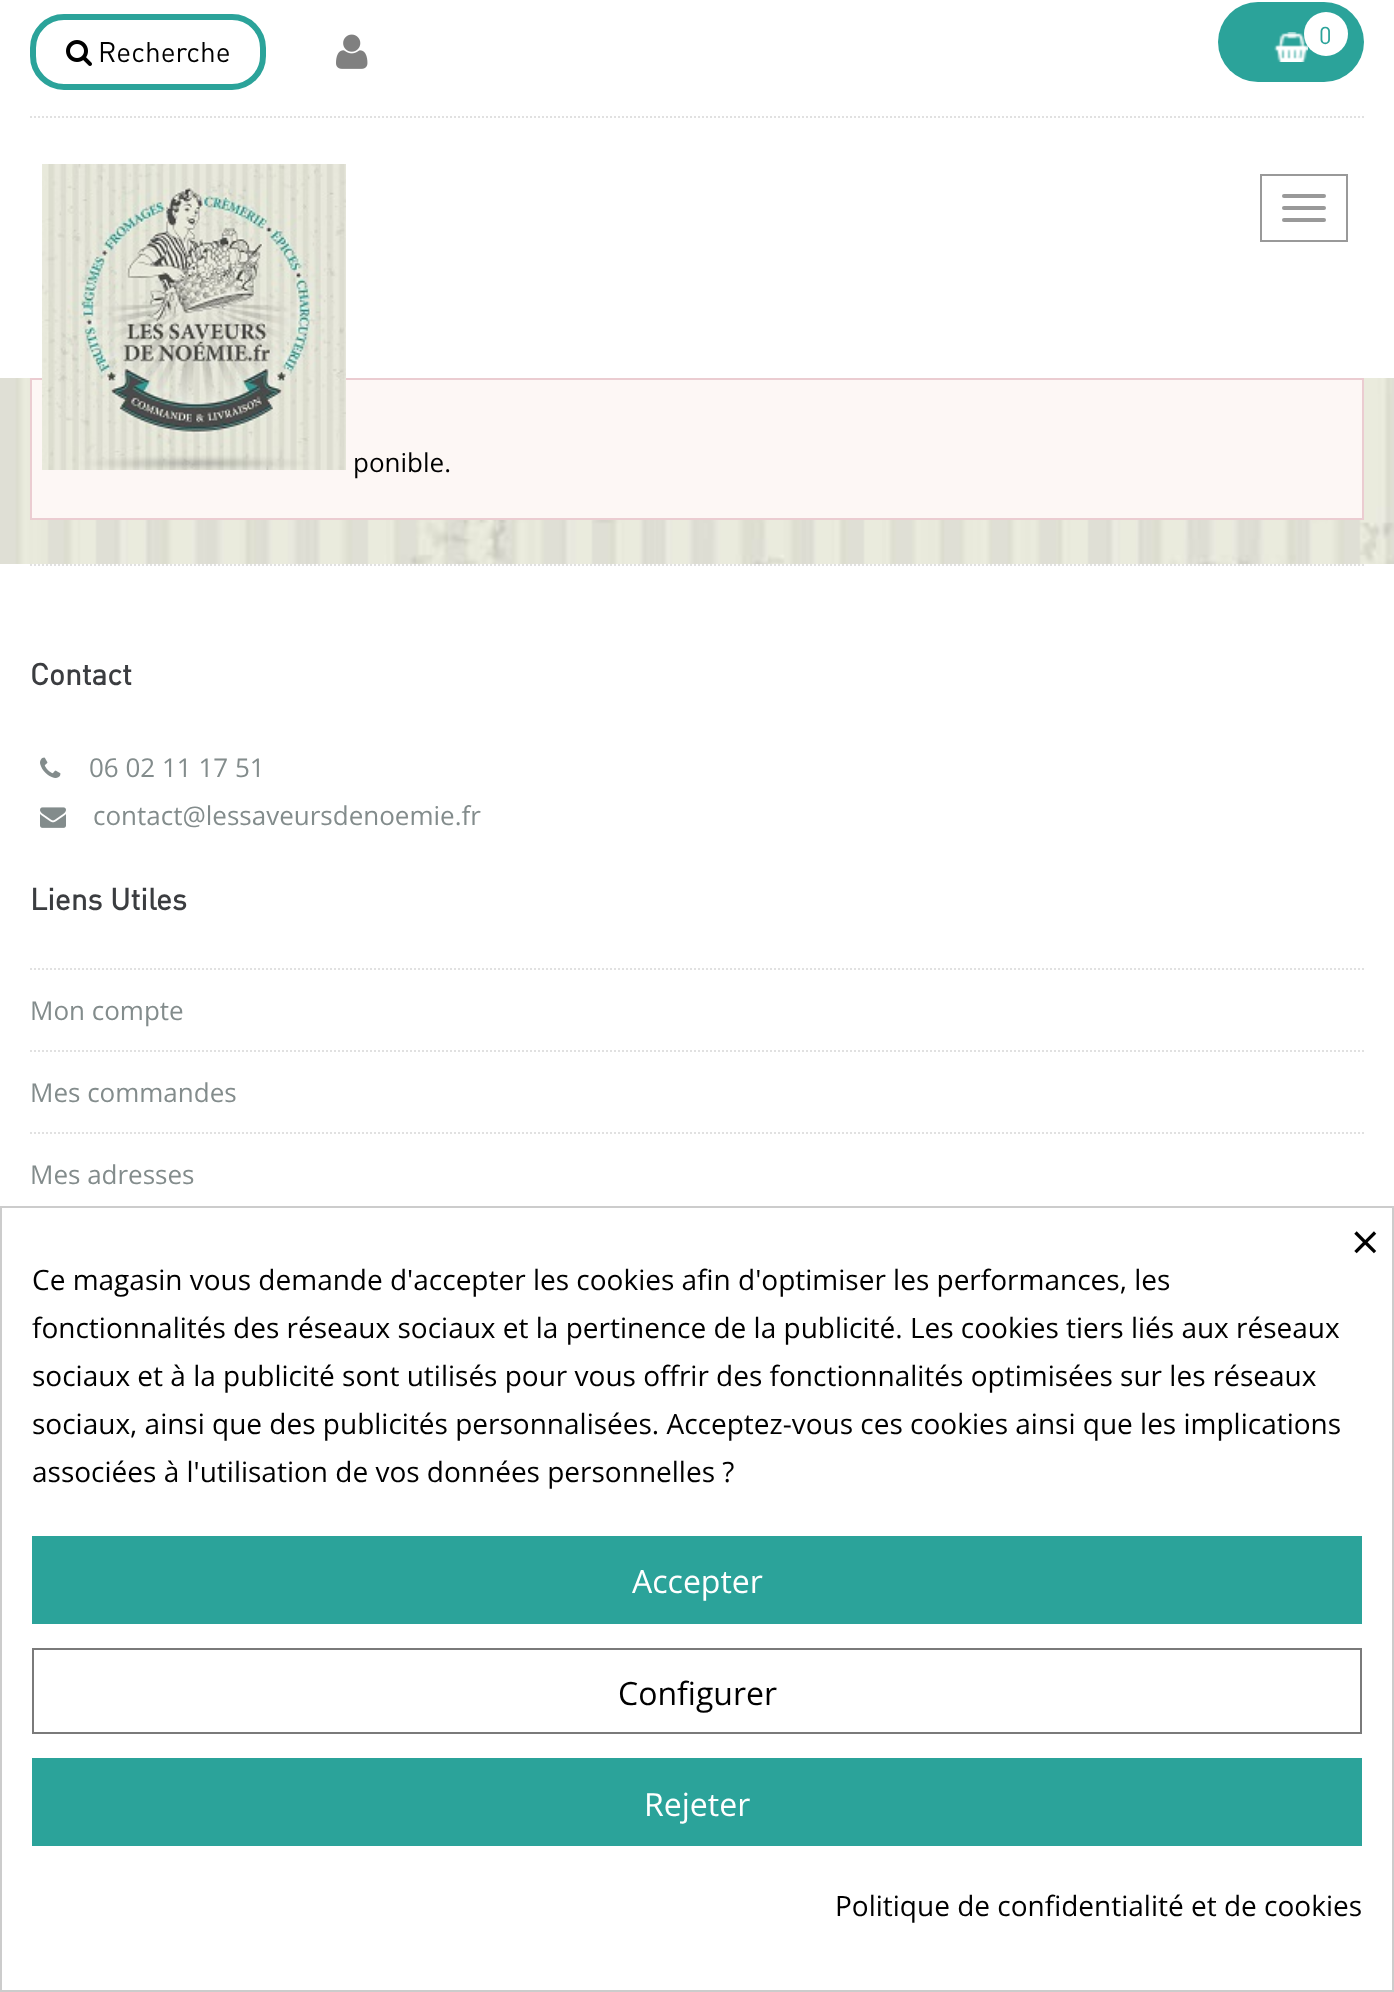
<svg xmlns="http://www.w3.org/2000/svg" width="1394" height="1992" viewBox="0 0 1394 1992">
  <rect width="100%" height="100%" fill="#fff"/>
  <path d="M30 117H1364" fill="none" stroke="#e1e1e1" stroke-width="2" stroke-dasharray="2 2"/>
  <image x="336" y="34" width="32" height="35" href="img/1.png"/>
  <rect x="1218" y="2" width="146" height="80" rx="40" fill="#2ba39a"/>
  <image x="1274" y="32" width="34" height="30" href="img/2.png"/>
  <circle cx="1326" cy="34" r="22" fill="#fff"/>
  <rect x="33" y="17" width="230" height="70" rx="31" fill="none" stroke="#2ba39a" stroke-width="6"/>
  <image x="66" y="40" width="26" height="26" href="img/3.png"/>
  <image x="0" y="378" width="1394" height="186" href="img/5.png"/>
  <path d="M31 379h1332v140H31z" fill="#fdf7f5" stroke="#ebccd1" stroke-width="2"/>
  <image x="42" y="164" width="304" height="306" href="img/4.png"/>
  <path d="M1261 175h86v66H1261z" fill="none" stroke="#999" stroke-width="2"/>
  <rect x="1282" y="194" width="44" height="4" rx="2" fill="#999"/>
  <rect x="1282" y="206" width="44" height="4" rx="2" fill="#999"/>
  <rect x="1282" y="218" width="44" height="4" rx="2" fill="#999"/>
  <path d="M30 565H1364" fill="none" stroke="#e1e1e1" stroke-width="2" stroke-dasharray="2 2"/>
  <image x="40" y="757" width="21" height="21" href="img/6.png"/>
  <image x="40" y="807" width="26" height="21" href="img/7.png"/>
  <path d="M30 969H1364" fill="none" stroke="#e1e1e1" stroke-width="2" stroke-dasharray="2 2"/>
  <path d="M30 1051H1364" fill="none" stroke="#e1e1e1" stroke-width="2" stroke-dasharray="2 2"/>
  <path d="M30 1133H1364" fill="none" stroke="#e1e1e1" stroke-width="2" stroke-dasharray="2 2"/>
  <path d="M1 1207h1392v784H1z" fill="none" stroke="#ccc" stroke-width="2"/>
  <path d="M32 1536h1330v88H32z" fill="#2ba39a"/>
  <path d="M33 1649h1328v84H33z" fill="none" stroke="#7a7a7a" stroke-width="2"/>
  <path d="M32 1758h1330v88H32z" fill="#2ba39a"/>
  <text x="1319" y="44" font-family="DIN" font-size="24" fill="#2ba39a">0</text>
  <text x="98" y="62" font-family="DIN" font-size="28" fill="#000">Recherche</text>
  <text x="353" y="472" font-family="Open Sans" font-size="26" fill="#000">ponible.</text>
  <text x="30" y="685" font-family="DIN" font-size="30" font-weight="bold" fill="#3b3d40">Contact</text>
  <g font-family="Open Sans" font-size="26" fill="#838c8c">
    <text x="89" y="777">06 02 11 17 51</text>
    <text x="93" y="825">contact@lessaveursdenoemie.fr</text>
  </g>
  <text x="30" y="910" font-family="DIN" font-size="30" font-weight="bold" fill="#3b3d40">Liens Utiles</text>
  <g font-family="Open Sans" font-size="26" fill="#838c8c">
    <text x="30" y="1020">Mon compte</text>
    <text x="30" y="1102">Mes commandes</text>
    <text x="30" y="1184">Mes adresses</text>
  </g>
  <text x="1351" y="1260" font-family="Open Sans" font-size="50" fill="#000">×</text>
  <g font-family="Open Sans" font-size="28" fill="#000">
    <text x="32" y="1290">Ce magasin vous demande d'accepter les cookies afin d'optimiser les performances, les</text>
    <text x="32" y="1338">fonctionnalités des réseaux sociaux et la pertinence de la publicité. Les cookies tiers liés aux réseaux</text>
    <text x="32" y="1386">sociaux et à la publicité sont utilisés pour vous offrir des fonctionnalités optimisées sur les réseaux</text>
    <text x="32" y="1434">sociaux, ainsi que des publicités personnalisées. Acceptez-vous ces cookies ainsi que les implications</text>
    <text x="32" y="1482">associées à l'utilisation de vos données personnelles ?</text>
  </g>
  <text x="632" y="1593" font-family="Open Sans" font-size="32" fill="#fff">Accepter</text>
  <text x="618" y="1705" font-family="Open Sans" font-size="32" fill="#000">Configurer</text>
  <text x="644" y="1816" font-family="Open Sans" font-size="32" fill="#fff">Rejeter</text>
  <text x="835" y="1916" font-family="Open Sans" font-size="28" fill="#000">Politique de confidentialité et de cookies</text>
</svg>
